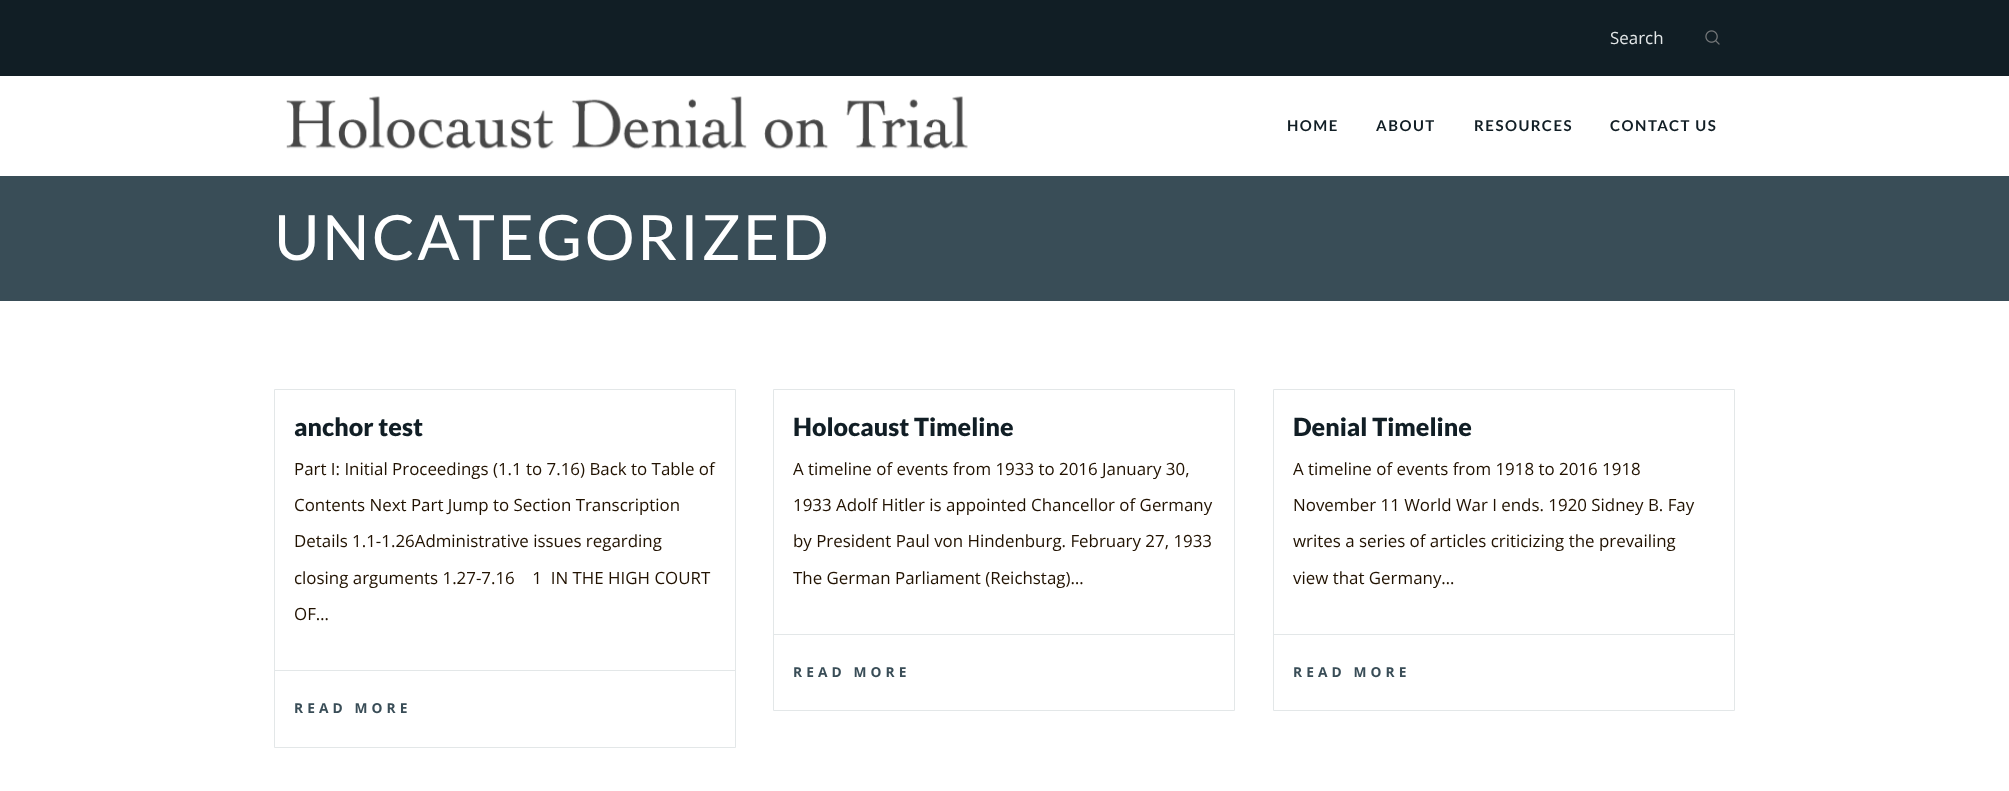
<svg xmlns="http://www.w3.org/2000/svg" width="2009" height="791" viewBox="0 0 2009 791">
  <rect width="100%" height="100%" fill="#fff"/>
  <path d="M0 0h2009v76H0z" fill="#111e25"/>
  <image x="1705" y="30" width="15" height="15" href="img/1.png"/>
  <image x="286" y="96" width="682" height="54" href="img/2.png"/>
  <path d="M0 176h2009v125H0z" fill="#394d57"/>
  <path d="M274.5 389.5h461v358H274.5z" fill="none" stroke="#e3e7e8"/>
  <path d="M275 670h460v1H275z" fill="#e3e7e8"/>
  <path d="M773.5 389.5h461v321H773.5z" fill="none" stroke="#e3e7e8"/>
  <path d="M774 634h460v1H774z" fill="#e3e7e8"/>
  <path d="M1273.5 389.5h461v321H1273.5z" fill="none" stroke="#e3e7e8"/>
  <path d="M1274 634h460v1H1274z" fill="#e3e7e8"/>
  <text x="1610" y="44" font-family="Open Sans" font-size="16.9" fill="#e3e7e8">Search</text>
  <g font-family="Lato" font-size="15" font-weight="bold" letter-spacing="1.5" fill="#111e25">
    <text x="1287" y="131">HOME</text>
    <text x="1376" y="131">ABOUT</text>
    <text x="1474" y="131">RESOURCES</text>
    <text x="1610" y="131">CONTACT US</text>
  </g>
  <text x="274" y="260" font-family="Lato" font-size="62.5" letter-spacing="2.5" fill="#fff">UNCATEGORIZED</text>
  <text x="294" y="436" font-family="Lato" font-size="25" font-weight="900" fill="#111e25">anchor test</text>
  <g font-family="Open Sans" font-size="16.9" fill="#211201">
    <text x="294" y="475">Part I: Initial Proceedings (1.1 to 7.16) Back to Table of</text>
    <text x="294" y="511">Contents Next Part Jump to Section Transcription</text>
    <text x="294" y="547">Details 1.1-1.26Administrative issues regarding</text>
    <text x="294" y="584" xml:space="preserve">closing arguments 1.27-7.16    1  IN THE HIGH COURT</text>
    <text x="294" y="620">OF…</text>
  </g>
  <text x="294" y="713" font-family="Open Sans" font-size="13.75" font-weight="bold" letter-spacing="4.1" fill="#394d57">READ MORE</text>
  <text x="793" y="436" font-family="Lato" font-size="25" font-weight="900" fill="#111e25">Holocaust Timeline</text>
  <g font-family="Open Sans" font-size="16.9" fill="#211201">
    <text x="793" y="475">A timeline of events from 1933 to 2016 January 30,</text>
    <text x="793" y="511">1933 Adolf Hitler is appointed Chancellor of Germany</text>
    <text x="793" y="547">by President Paul von Hindenburg. February 27, 1933</text>
    <text x="793" y="584">The German Parliament (Reichstag)…</text>
  </g>
  <text x="793" y="677" font-family="Open Sans" font-size="13.75" font-weight="bold" letter-spacing="4.1" fill="#394d57">READ MORE</text>
  <text x="1293" y="436" font-family="Lato" font-size="25" font-weight="900" fill="#111e25">Denial Timeline</text>
  <g font-family="Open Sans" font-size="16.9" fill="#211201">
    <text x="1293" y="475">A timeline of events from 1918 to 2016 1918</text>
    <text x="1293" y="511">November 11 World War I ends. 1920 Sidney B. Fay</text>
    <text x="1293" y="547">writes a series of articles criticizing the prevailing</text>
    <text x="1293" y="584">view that Germany…</text>
  </g>
  <text x="1293" y="677" font-family="Open Sans" font-size="13.75" font-weight="bold" letter-spacing="4.1" fill="#394d57">READ MORE</text>
</svg>
